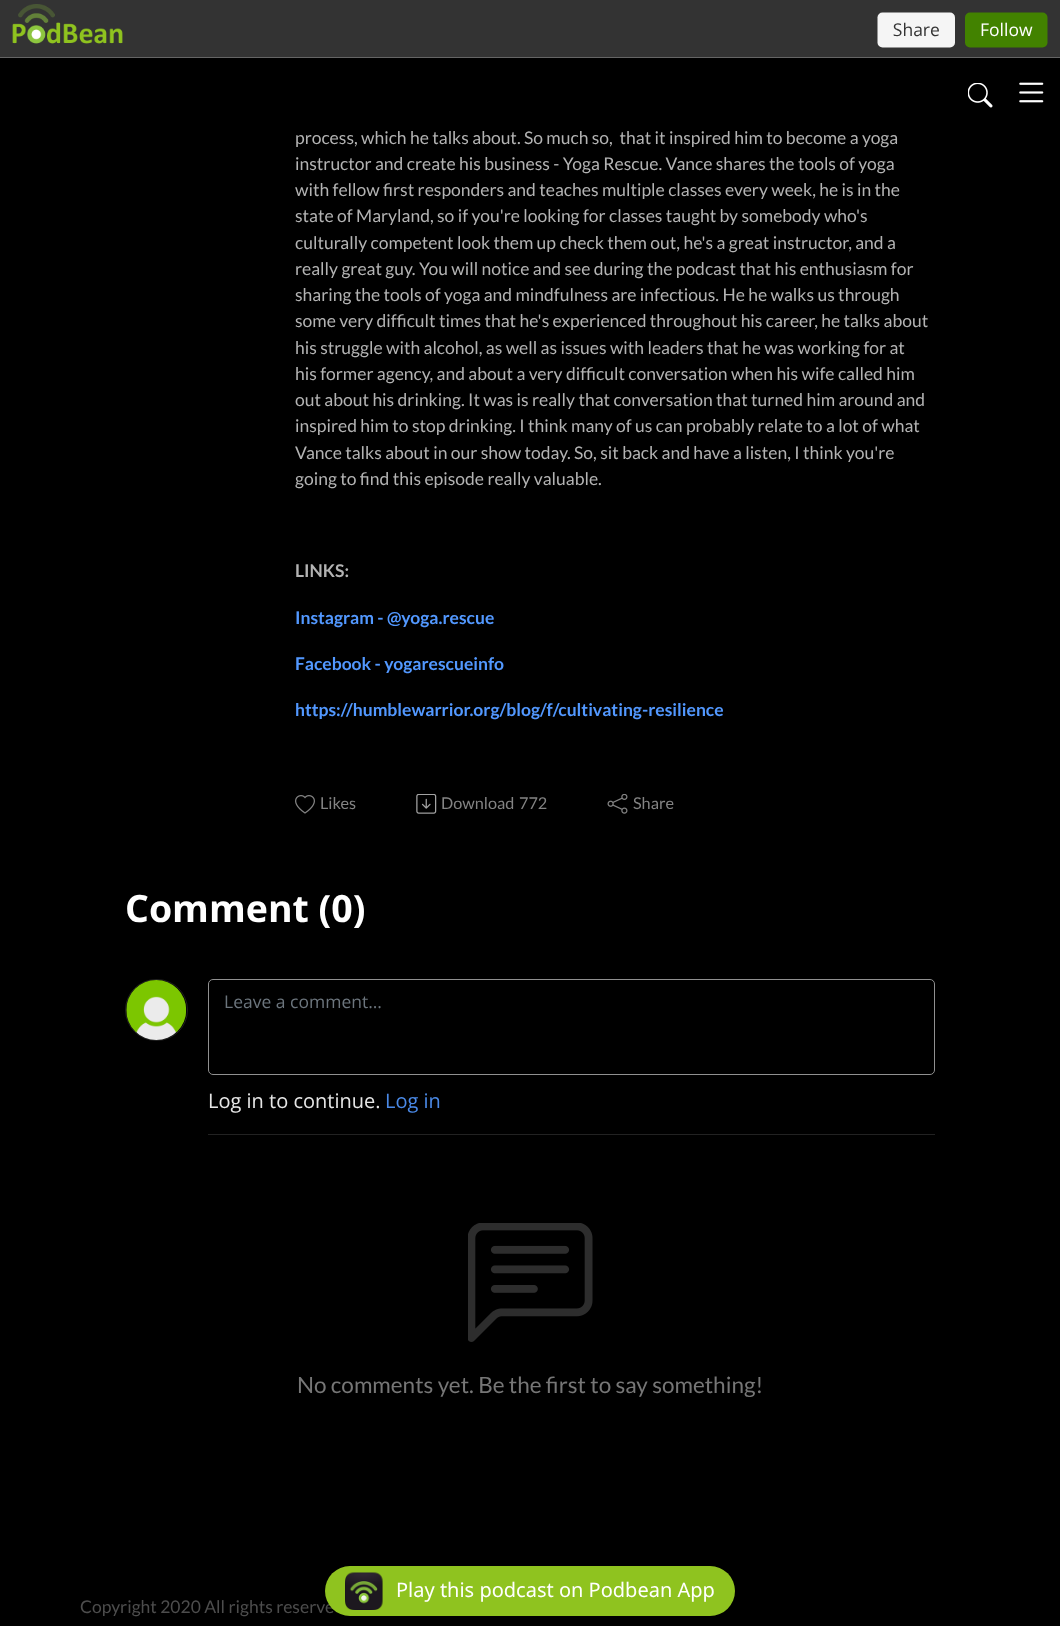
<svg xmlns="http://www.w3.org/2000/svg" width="1060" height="1626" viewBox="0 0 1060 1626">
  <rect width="100%" height="100%" fill="#000"/>
  <path d="M0 0h1060v4H0z" fill="#333"/>
  <image x="0" y="4" width="1060" height="54" href="img/1.png"/>
  <image x="968" y="83" width="25" height="25" href="img/2.png"/>
  <image x="1019" y="82" width="25" height="21" href="img/3.png"/>
  <image x="295" y="795" width="20" height="19" href="img/4.png"/>
  <image x="416" y="794" width="21" height="20" href="img/5.png"/>
  <image x="607" y="794" width="21" height="20" href="img/6.png"/>
  <rect x="125.5" y="979.5" width="62" height="61" rx="30.5" fill="none" stroke="#202020"/>
  <image x="126" y="980" width="61" height="60" href="img/7.png"/>
  <path d="M208 1134h727v1H208z" fill="#222"/>
  <rect x="208.5" y="979.5" width="726" height="95" rx="4.5" fill="none" stroke="#909090"/>
  <image x="468" y="1223" width="125" height="119" href="img/8.png"/>
  <g font-family="Lato" font-size="17.5" fill="#b3b3b3">
    <text x="295" y="144" xml:space="preserve">process, which he talks about. So much so,  that it inspired him to become a yoga</text>
    <text x="295" y="170">instructor and create his business - Yoga Rescue. Vance shares the tools of yoga</text>
    <text x="295" y="196">with fellow first responders and teaches multiple classes every week, he is in the</text>
    <text x="295" y="222">state of Maryland, so if you're looking for classes taught by somebody who's</text>
    <text x="295" y="249">culturally competent look them up check them out, he's a great instructor, and a</text>
    <text x="295" y="275">really great guy. You will notice and see during the podcast that his enthusiasm for</text>
    <text x="295" y="301">sharing the tools of yoga and mindfulness are infectious. He he walks us through</text>
    <text x="295" y="327">some very difficult times that he's experienced throughout his career, he talks about</text>
    <text x="295" y="354">his struggle with alcohol, as well as issues with leaders that he was working for at</text>
    <text x="295" y="380">his former agency, and about a very difficult conversation when his wife called him</text>
    <text x="295" y="406">out about his drinking. It was is really that conversation that turned him around and</text>
    <text x="295" y="432">inspired him to stop drinking. I think many of us can probably relate to a lot of what</text>
    <text x="295" y="459">Vance talks about in our show today. So, sit back and have a listen, I think you're</text>
    <text x="295" y="485">going to find this episode really valuable.</text>
  </g>
  <text x="295" y="577" font-family="Lato" font-size="17.5" font-weight="bold" fill="#b3b3b3">LINKS:</text>
  <g font-family="Lato" font-size="17.5" font-weight="bold" fill="#5298ff">
    <text x="295" y="624">Instagram - @yoga.rescue</text>
    <text x="295" y="670">Facebook - yogarescueinfo</text>
    <text x="295" y="716">https://humblewarrior.org/blog/f/cultivating-resilience</text>
  </g>
  <g font-family="Lato" font-size="16.25" fill="#838383">
    <text x="320" y="809">Likes</text>
    <text x="441" y="809">Download</text>
    <text x="519" y="809">772</text>
    <text x="633" y="809">Share</text>
  </g>
  <text x="125" y="922" font-family="Open Sans" font-size="37.5" font-weight="bold" fill="#fff">Comment (0)</text>
  <text x="224" y="1008" font-family="Open Sans" font-size="17.5" fill="#6c757d">Leave a comment...</text>
  <text x="208" y="1108" font-family="Open Sans" font-size="20" fill="#e6e6e6">Log in to continue.</text>
  <text x="385" y="1108" font-family="Open Sans" font-size="20" fill="#4a89e6">Log in</text>
  <text x="297" y="1393" font-family="Lato" font-size="22.5" fill="#767676">No comments yet. Be the first to say something!</text>
  <text x="80" y="1613" font-family="Lato" font-size="17.5" fill="#4d4d4d">Copyright 2020 All rights reserve</text>
  <rect x="325" y="1566" width="410" height="50" rx="25" fill="#8fc31f"/>
  <image x="345" y="1572" width="38" height="38" href="img/9.png"/>
  <text x="396" y="1597" font-family="Noto Sans" font-size="20" fill="#fff">Play this podcast on Podbean App</text>
</svg>
